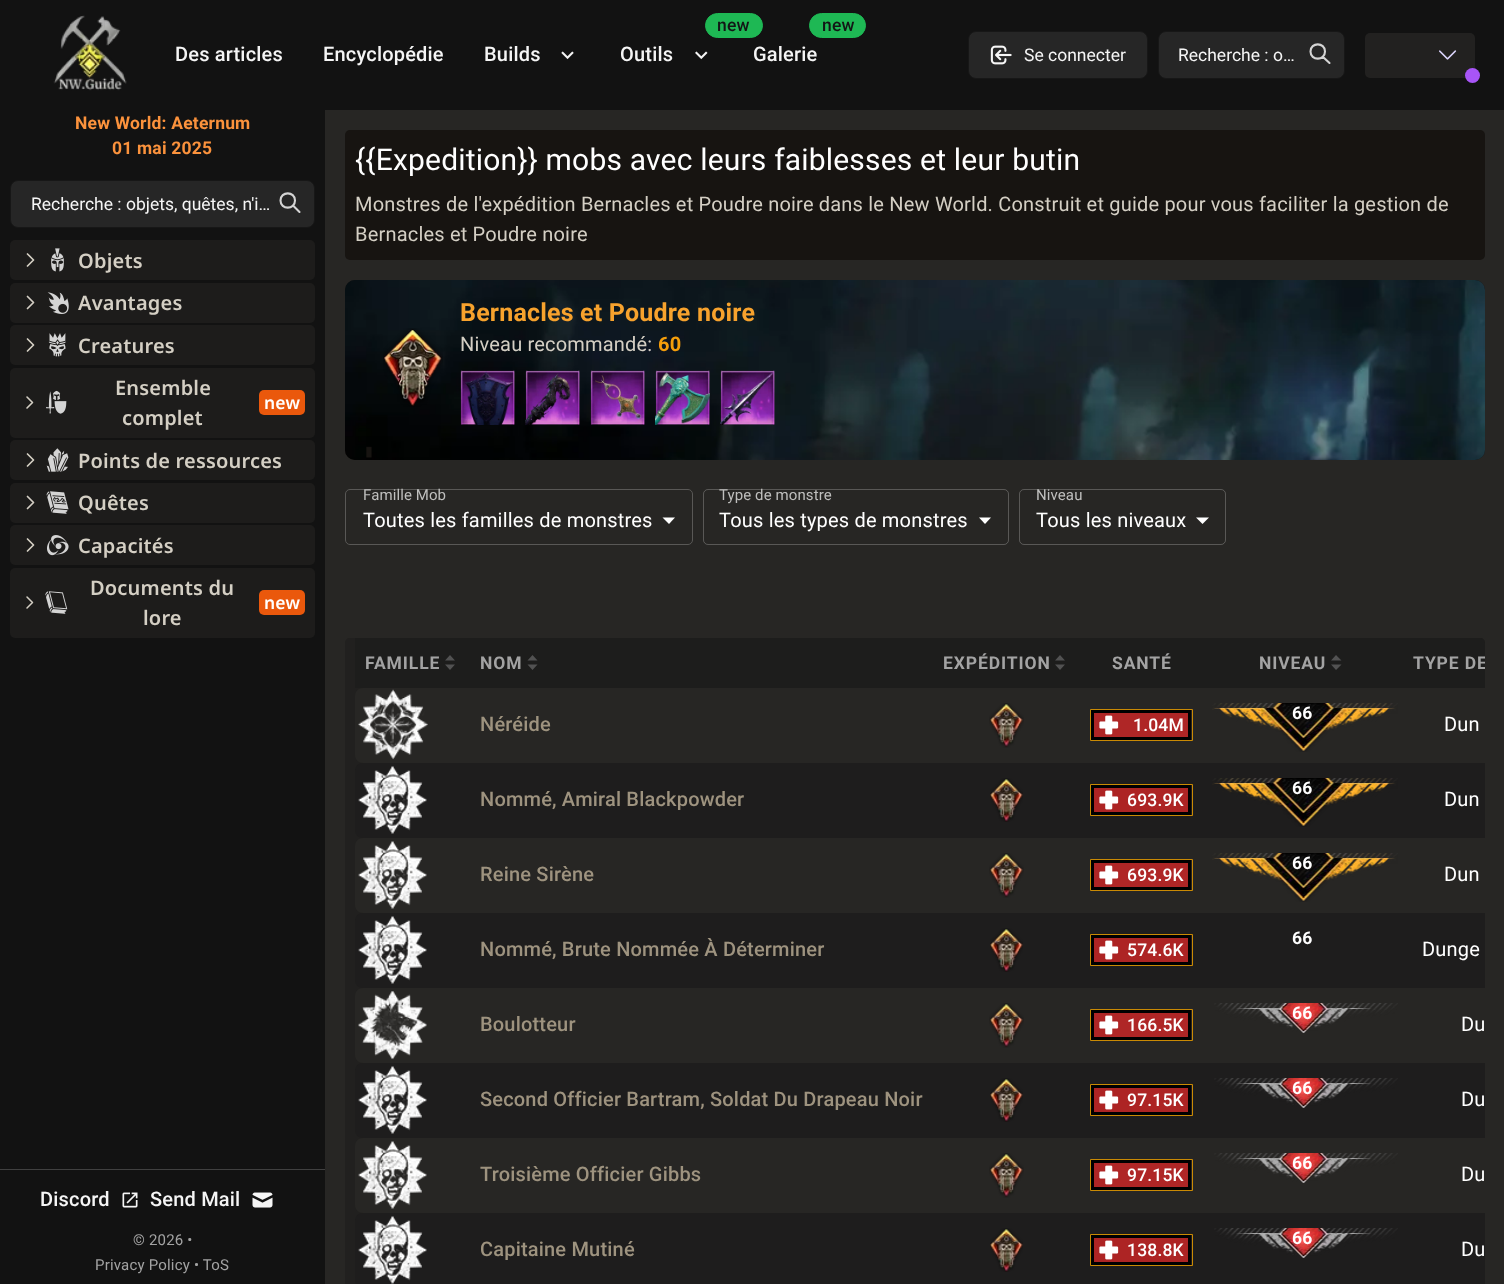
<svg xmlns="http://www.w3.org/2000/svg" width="1504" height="1284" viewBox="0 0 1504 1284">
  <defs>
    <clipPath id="clip1"><rect x="345" y="638" width="1140" height="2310" rx="5"/></clipPath>
  </defs>
  <rect width="100%" height="100%" fill="#272624"/>
  <path d="M0 0h1504v110H0z" fill="#121212"/>
  <image x="53" y="15" width="74" height="76" href="img/1.png"/>
  <image x="561" y="51" width="13" height="9" href="img/2.png"/>
  <rect x="705.5" y="13.5" width="57" height="24" rx="12" fill="#1eb854" stroke="#1eb854"/>
  <image x="695" y="51" width="13" height="9" href="img/3.png"/>
  <rect x="809.5" y="13.5" width="56" height="24" rx="12" fill="#1eb854" stroke="#1eb854"/>
  <rect x="968.5" y="31.5" width="179" height="47" rx="7.5" fill="#262626" stroke="#171717"/>
  <image x="990" y="45" width="22" height="20" href="img/4.png"/>
  <rect x="1158.5" y="31.5" width="186" height="47" rx="7.5" fill="#262626" stroke="#171717"/>
  <path d="M1329.5 63L1323 57M1325 51.5C1325 61 1310.5 61 1310.5 51.5C1310.5 42 1325 42 1325 51.5Z" fill="none" stroke="#d4d4d4" stroke-width="2.1" stroke-linecap="round" stroke-linejoin="round"/>
  <rect x="1365" y="33" width="110" height="45" rx="5" fill="#272624cc"/>
  <image x="1439" y="50" width="18" height="10" href="img/5.png"/>
  <circle cx="1472.5" cy="75.5" r="7.5" fill="#a855f7"/>
  <path d="M0 110h325v1174H0z" fill="#121212"/>
  <rect x="10.5" y="180.5" width="304" height="47" rx="7.5" fill="#262626" stroke="#171717"/>
  <path d="M299.5 212L293 205.5M295 200.5C295 210 280.5 210 280.5 200.5C280.5 191 295 191 295 200.5Z" fill="none" stroke="#d4d4d4" stroke-width="2.1" stroke-linecap="round" stroke-linejoin="round"/>
  <rect x="10" y="240" width="305" height="40" rx="5" fill="#1d1c1b"/>
  <path d="M27.5 254L33.5 260L27.5 266" fill="none" stroke="#d4cfc4" stroke-width="1.7" stroke-linecap="round" stroke-linejoin="round"/>
  <image x="51" y="248" width="13" height="24" href="img/6.png"/>
  <rect x="10" y="283" width="305" height="40" rx="5" fill="#1d1c1b"/>
  <path d="M27.5 296.5L33.5 302.5L27.5 308.5" fill="none" stroke="#d4cfc4" stroke-width="1.7" stroke-linecap="round" stroke-linejoin="round"/>
  <image x="47" y="292" width="22" height="22" href="img/7.png"/>
  <rect x="10" y="325" width="305" height="40" rx="5" fill="#1d1c1b"/>
  <path d="M27.5 339L33.5 345L27.5 351" fill="none" stroke="#d4cfc4" stroke-width="1.7" stroke-linecap="round" stroke-linejoin="round"/>
  <image x="48" y="333" width="18" height="24" href="img/8.png"/>
  <rect x="10" y="368" width="305" height="70" rx="5" fill="#1d1c1b"/>
  <path d="M27 397L32.5 402.5L27 408" fill="none" stroke="#d4cfc4" stroke-width="1.6" stroke-linecap="round" stroke-linejoin="round"/>
  <image x="46" y="390" width="21" height="24" href="img/9.png"/>
  <rect x="259" y="390" width="46" height="25" rx="5" fill="#ea580c"/>
  <rect x="10" y="440" width="305" height="40" rx="5" fill="#1d1c1b"/>
  <path d="M27.5 454L33.5 460L27.5 466" fill="none" stroke="#d4cfc4" stroke-width="1.7" stroke-linecap="round" stroke-linejoin="round"/>
  <image x="46" y="448" width="23" height="24" href="img/10.png"/>
  <rect x="10" y="483" width="305" height="40" rx="5" fill="#1d1c1b"/>
  <path d="M27.5 496.5L33.5 502.5L27.5 508.5" fill="none" stroke="#d4cfc4" stroke-width="1.7" stroke-linecap="round" stroke-linejoin="round"/>
  <image x="46" y="491" width="23" height="23" href="img/11.png"/>
  <rect x="10" y="525" width="305" height="40" rx="5" fill="#1d1c1b"/>
  <path d="M27.5 539L33.5 545L27.5 551" fill="none" stroke="#d4cfc4" stroke-width="1.7" stroke-linecap="round" stroke-linejoin="round"/>
  <image x="47" y="535" width="22" height="21" href="img/12.png"/>
  <rect x="10" y="568" width="305" height="70" rx="5" fill="#1d1c1b"/>
  <path d="M27 597L32.5 602.5L27 608" fill="none" stroke="#d4cfc4" stroke-width="1.5" stroke-linecap="round" stroke-linejoin="round"/>
  <image x="45" y="591" width="23" height="23" href="img/13.png"/>
  <rect x="259" y="590" width="46" height="25" rx="5" fill="#ea580c"/>
  <path d="M0 1169h325v1H0z" fill="#404040"/>
  <image x="122" y="1192" width="16" height="16" href="img/14.png"/>
  <image x="252" y="1192" width="21" height="16" href="img/15.png"/>
  <rect x="345" y="130" width="1140" height="130" rx="5" fill="#171411"/>
  <rect x="345" y="280" width="1140" height="180" rx="10" fill="#171411"/>
  <image x="345" y="280" width="1140" height="180" href="img/16.png"/>
  <image x="383" y="328" width="60" height="79" href="img/17.png"/>
  <image x="460" y="370" width="55" height="55" href="img/18.png"/>
  <image x="525" y="370" width="55" height="55" href="img/19.png"/>
  <image x="590" y="370" width="55" height="55" href="img/20.png"/>
  <image x="655" y="370" width="55" height="55" href="img/21.png"/>
  <image x="720" y="370" width="55" height="55" href="img/22.png"/>
  <path d="M662.5 517.5L669 524L675 517.5Z" fill="#fff"/>
  <rect x="345.5" y="489.5" width="347" height="55" rx="4.5" fill="none" stroke="#595856"/>
  <path d="M979 517.5L985 524L991 517.5Z" fill="#fff"/>
  <rect x="703.5" y="489.5" width="305" height="55" rx="4.5" fill="none" stroke="#ffffff3b"/>
  <path d="M1196 517.5L1202.5 524L1209 517.5Z" fill="#fff"/>
  <rect x="1019.5" y="489.5" width="206" height="55" rx="4.5" fill="none" stroke="#ffffff3b"/>
  <path d="M350 638H1480C1483 638 1485 640 1485 643V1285H345V643C345 640 347 638 350 638Z" fill="#21201f"/>
  <path d="M355 638H1480C1483 638 1485 640 1485 643V688H355Z" fill="#1a1a1a80"/>
  <path d="M445 660.5L450 655L455 660.5ZM445 664.5L450 670L455 664.5Z" fill="#525252"/>
  <path d="M527.5 660.5L532.5 655L537.5 660.5ZM527.5 664.5L532.5 670L537.5 664.5Z" fill="#525252"/>
  <path d="M1055 660.5L1060 655L1065 660.5ZM1055 664.5L1060 670L1065 664.5Z" fill="#525252"/>
  <path d="M1331 660.5L1336 655L1341.5 660.5ZM1331 664.5L1336 670L1341.5 664.5Z" fill="#525252"/>
  <path d="M363 688H1485V763H363C358.5 763 355 759.5 355 755V696C355 691.5 358.5 688 363 688Z" fill="#272624"/>
  <image x="358" y="689" width="70" height="71" href="img/23.png"/>
  <image x="989" y="703" width="35" height="45" href="img/24.png"/>
  <image x="1212" y="703" width="186" height="49" href="img/25.png"/>
  <path d="M1090.5 709.5h102v31H1090.5z" fill="none" stroke="#ca8a04"/>
  <path d="M1092.5 711.5h97v27H1092.5z" fill="#af2626" stroke="#000" stroke-width="3"/>
  <image x="1099" y="715" width="20" height="20" href="img/26.png"/>
  <path d="M363 763H1485V838H363C358.5 838 355 834.5 355 830V771C355 766.5 358.5 763 363 763Z" fill="#1e1d1d"/>
  <image x="358" y="766" width="69" height="68" href="img/27.png"/>
  <image x="990" y="778" width="33" height="44" href="img/28.png"/>
  <image x="1212" y="778" width="186" height="49" href="img/29.png"/>
  <path d="M1090.5 784.5h102v31H1090.5z" fill="none" stroke="#ca8a04"/>
  <path d="M1092.5 786.5h97v27H1092.5z" fill="#ad2424" stroke="#000" stroke-width="3"/>
  <image x="1099" y="790" width="20" height="20" href="img/30.png"/>
  <path d="M363 838H1485V913H363C358.5 913 355 909.5 355 905V846C355 841.5 358.5 838 363 838Z" fill="#272624"/>
  <image x="358" y="841" width="69" height="68" href="img/31.png"/>
  <image x="989" y="853" width="35" height="45" href="img/24.png"/>
  <image x="1212" y="853" width="186" height="49" href="img/25.png"/>
  <path d="M1090.5 859.5h102v31H1090.5z" fill="none" stroke="#ca8a04"/>
  <path d="M1092.5 861.5h97v27H1092.5z" fill="#af2626" stroke="#000" stroke-width="3"/>
  <image x="1099" y="865" width="20" height="20" href="img/26.png"/>
  <path d="M363 913H1485V988H363C358.5 988 355 984.5 355 980V921C355 916.5 358.5 913 363 913Z" fill="#1e1d1d"/>
  <image x="358" y="916" width="69" height="68" href="img/27.png"/>
  <image x="990" y="928" width="33" height="44" href="img/28.png"/>
  <path d="M1090.5 934.5h102v31H1090.5z" fill="none" stroke="#ca8a04"/>
  <path d="M1092.5 936.5h97v27H1092.5z" fill="#ad2424" stroke="#000" stroke-width="3"/>
  <image x="1099" y="940" width="20" height="20" href="img/30.png"/>
  <path d="M363 988H1485V1063H363C358.5 1063 355 1059.5 355 1055V996C355 991.5 358.5 988 363 988Z" fill="#272624"/>
  <image x="358" y="991" width="69" height="69" href="img/32.png"/>
  <image x="989" y="1003" width="35" height="45" href="img/24.png"/>
  <image x="1214" y="1003" width="184" height="30" href="img/33.png"/>
  <path d="M1090.5 1009.5h102v31H1090.5z" fill="none" stroke="#ca8a04"/>
  <path d="M1092.5 1011.5h97v27H1092.5z" fill="#af2626" stroke="#000" stroke-width="3"/>
  <image x="1099" y="1015" width="20" height="20" href="img/26.png"/>
  <path d="M363 1063H1485V1138H363C358.5 1138 355 1134.5 355 1130V1071C355 1066.5 358.5 1063 363 1063Z" fill="#1e1d1d"/>
  <image x="358" y="1066" width="69" height="68" href="img/27.png"/>
  <image x="990" y="1078" width="33" height="44" href="img/28.png"/>
  <image x="1214" y="1078" width="184" height="30" href="img/34.png"/>
  <path d="M1090.5 1084.5h102v31H1090.5z" fill="none" stroke="#ca8a04"/>
  <path d="M1092.5 1086.5h97v27H1092.5z" fill="#ad2424" stroke="#000" stroke-width="3"/>
  <image x="1099" y="1090" width="20" height="20" href="img/30.png"/>
  <path d="M363 1138H1485V1213H363C358.5 1213 355 1209.5 355 1205V1146C355 1141.5 358.5 1138 363 1138Z" fill="#272624"/>
  <image x="358" y="1141" width="69" height="68" href="img/31.png"/>
  <image x="989" y="1153" width="35" height="45" href="img/24.png"/>
  <image x="1214" y="1153" width="184" height="30" href="img/33.png"/>
  <path d="M1090.5 1159.5h102v31H1090.5z" fill="none" stroke="#ca8a04"/>
  <path d="M1092.5 1161.5h97v27H1092.5z" fill="#af2626" stroke="#000" stroke-width="3"/>
  <image x="1099" y="1165" width="20" height="20" href="img/26.png"/>
  <path d="M363 1213H1485V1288H363C358.5 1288 355 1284.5 355 1280V1221C355 1216.5 358.5 1213 363 1213Z" fill="#1e1d1d"/>
  <image x="358" y="1216" width="69" height="68" href="img/27.png"/>
  <image x="990" y="1228" width="33" height="44" href="img/28.png"/>
  <image x="1214" y="1228" width="184" height="30" href="img/34.png"/>
  <path d="M1090.5 1234.5h102v31H1090.5z" fill="none" stroke="#ca8a04"/>
  <path d="M1092.5 1236.5h97v27H1092.5z" fill="#ad2424" stroke="#000" stroke-width="3"/>
  <image x="1099" y="1240" width="20" height="20" href="img/30.png"/>
  <g font-family="Roboto" font-size="20" font-weight="500" letter-spacing="0.19" fill="#f5f5f5">
    <text x="175" y="61">Des articles</text>
    <text x="323" y="61">Encyclopédie</text>
    <text x="484" y="61">Builds</text>
  </g>
  <text x="717" y="31" font-family="Roboto" font-size="17.5" font-weight="500" letter-spacing="0.19" fill="#131616">new</text>
  <text x="620" y="61" font-family="Roboto" font-size="20" font-weight="500" letter-spacing="0.19" fill="#f5f5f5">Outils</text>
  <text x="822" y="31" font-family="Roboto" font-size="17.5" font-weight="500" letter-spacing="0.19" fill="#131616">new</text>
  <text x="753" y="61" font-family="Roboto" font-size="20" font-weight="500" letter-spacing="0.19" fill="#f5f5f5">Galerie</text>
  <g font-family="Roboto" font-size="17.5" fill="#f5f5f5">
    <text x="1024" y="61">Se connecter</text>
    <text x="1178" y="61">Recherche : o…</text>
  </g>
  <g font-family="Roboto" font-size="17.5" font-weight="bold" letter-spacing="0.19" fill="#fb923c">
    <text x="75" y="129">New World: Aeternum</text>
    <text x="112" y="154">01 mai 2025</text>
  </g>
  <text x="31" y="210" font-family="Roboto" font-size="17.5" fill="#f5f5f5">Recherche : objets, quêtes, n'i…</text>
  <g font-family="Noto Sans" font-size="20" font-weight="600" letter-spacing="0.19" fill="#d4cfc4">
    <text x="78" y="268">Objets</text>
    <text x="78" y="310">Avantages</text>
    <text x="78" y="353">Creatures</text>
    <text x="115" y="395">Ensemble</text>
    <text x="122" y="425">complet</text>
  </g>
  <text x="264" y="409" font-family="Noto Sans" font-size="17.5" font-weight="600" letter-spacing="0.19" fill="#fff">new</text>
  <g font-family="Noto Sans" font-size="20" font-weight="600" letter-spacing="0.19" fill="#d4cfc4">
    <text x="78" y="468">Points de ressources</text>
    <text x="78" y="510">Quêtes</text>
    <text x="78" y="553">Capacités</text>
    <text x="90" y="595">Documents du</text>
    <text x="143" y="625">lore</text>
  </g>
  <text x="264" y="609" font-family="Noto Sans" font-size="17.5" font-weight="600" letter-spacing="0.19" fill="#fff">new</text>
  <g font-family="Roboto" font-size="20" font-weight="500" letter-spacing="0.19" fill="#f5f5f5">
    <text x="40" y="1206">Discord</text>
    <text x="150" y="1206">Send Mail</text>
  </g>
  <g font-family="Roboto" font-size="15" letter-spacing="0.19" fill="#a3a3a3">
    <text x="133" y="1245">© 2026 •</text>
    <text x="95" y="1270">Privacy Policy • ToS</text>
  </g>
  <text x="355" y="170" font-family="Roboto" font-size="30" letter-spacing="0.19" fill="#fff">{{Expedition}} mobs avec leurs faiblesses et leur butin</text>
  <g font-family="Roboto" font-size="20" letter-spacing="0.19" fill="#d4cfc4">
    <text x="355" y="211">Monstres de l'expédition Bernacles et Poudre noire dans le New World. Construit et guide pour vous faciliter la gestion de</text>
    <text x="355" y="241">Bernacles et Poudre noire</text>
  </g>
  <text x="460" y="321" font-family="Roboto" font-size="25" font-weight="bold" letter-spacing="0.19" fill="#f7a22d">Bernacles et Poudre noire</text>
  <text x="460" y="351" font-family="Roboto" font-size="20" letter-spacing="0.19" fill="#d4cfc4">Niveau recommandé:</text>
  <text x="658" y="351" font-family="Roboto" font-size="20" font-weight="bold" letter-spacing="0.19" fill="#f59e0b">60</text>
  <text x="363" y="500" font-family="Roboto" font-size="15" letter-spacing="0.1" fill="#bfbfbe">Famille Mob</text>
  <text x="363" y="527" font-family="Roboto" font-size="20" letter-spacing="0.19" fill="#fff">Toutes les familles de monstres</text>
  <text x="719" y="500" font-family="Roboto" font-size="15" letter-spacing="0.1" fill="#bfbfbe">Type de monstre</text>
  <text x="719" y="527" font-family="Roboto" font-size="20" letter-spacing="0.19" fill="#fff">Tous les types de monstres</text>
  <text x="1036" y="500" font-family="Roboto" font-size="15" letter-spacing="0.1" fill="#bfbfbe">Niveau</text>
  <text x="1036" y="527" font-family="Roboto" font-size="20" letter-spacing="0.19" fill="#fff">Tous les niveaux</text>
  <g font-family="Roboto" font-size="17.5" font-weight="bold" letter-spacing="0.9" fill="#a3a3a3">
    <text x="365" y="669">FAMILLE</text>
    <text x="480" y="669">NOM</text>
    <text x="943" y="669">EXPÉDITION</text>
    <text x="1112" y="669">SANTÉ</text>
    <text x="1259" y="669">NIVEAU</text>
  </g>
  <g clip-path="url(#clip1)">
    <text x="1413" y="669" font-family="Roboto" font-size="17.5" font-weight="bold" letter-spacing="0.9" fill="#a3a3a3">TYPE DE</text>
  </g>
  <text x="1292" y="719" font-family="Roboto" font-size="17.5" font-weight="bold" letter-spacing="0.19" fill="#fff">66</text>
  <text x="480" y="731" font-family="Roboto" font-size="20" font-weight="500" letter-spacing="0.19" fill="#9e937f">Néréide</text>
  <text x="1133" y="731" font-family="Roboto" font-size="17.5" font-weight="500" letter-spacing="0.19" fill="#fff">1.04M</text>
  <text x="1444" y="731" font-family="Roboto" font-size="20" letter-spacing="0.19" fill="#fff">Dun</text>
  <text x="1292" y="794" font-family="Roboto" font-size="17.5" font-weight="bold" letter-spacing="0.19" fill="#fff">66</text>
  <text x="480" y="806" font-family="Roboto" font-size="20" font-weight="500" letter-spacing="0.19" fill="#9e937f">Nommé, Amiral Blackpowder</text>
  <text x="1127" y="806" font-family="Roboto" font-size="17.5" font-weight="500" letter-spacing="0.19" fill="#fff">693.9K</text>
  <text x="1444" y="806" font-family="Roboto" font-size="20" letter-spacing="0.19" fill="#fff">Dun</text>
  <text x="1292" y="869" font-family="Roboto" font-size="17.5" font-weight="bold" letter-spacing="0.19" fill="#fff">66</text>
  <text x="480" y="881" font-family="Roboto" font-size="20" font-weight="500" letter-spacing="0.19" fill="#9e937f">Reine Sirène</text>
  <text x="1127" y="881" font-family="Roboto" font-size="17.5" font-weight="500" letter-spacing="0.19" fill="#fff">693.9K</text>
  <text x="1444" y="881" font-family="Roboto" font-size="20" letter-spacing="0.19" fill="#fff">Dun</text>
  <text x="480" y="956" font-family="Roboto" font-size="20" font-weight="500" letter-spacing="0.19" fill="#9e937f">Nommé, Brute Nommée À Déterminer</text>
  <text x="1127" y="956" font-family="Roboto" font-size="17.5" font-weight="500" letter-spacing="0.19" fill="#fff">574.6K</text>
  <text x="1292" y="944" font-family="Roboto" font-size="17.5" font-weight="bold" letter-spacing="0.19" fill="#fff">66</text>
  <text x="1422" y="956" font-family="Roboto" font-size="20" letter-spacing="0.19" fill="#fff">Dunge</text>
  <text x="1292" y="1019" font-family="Roboto" font-size="17.5" font-weight="bold" letter-spacing="0.19" fill="#fff">66</text>
  <text x="480" y="1031" font-family="Roboto" font-size="20" font-weight="500" letter-spacing="0.19" fill="#9e937f">Boulotteur</text>
  <text x="1127" y="1031" font-family="Roboto" font-size="17.5" font-weight="500" letter-spacing="0.19" fill="#fff">166.5K</text>
  <text x="1461" y="1031" font-family="Roboto" font-size="20" letter-spacing="0.19" fill="#fff">Du</text>
  <text x="1292" y="1094" font-family="Roboto" font-size="17.5" font-weight="bold" letter-spacing="0.19" fill="#fff">66</text>
  <text x="480" y="1106" font-family="Roboto" font-size="20" font-weight="500" letter-spacing="0.19" fill="#9e937f">Second Officier Bartram, Soldat Du Drapeau Noir</text>
  <text x="1127" y="1106" font-family="Roboto" font-size="17.5" font-weight="500" letter-spacing="0.19" fill="#fff">97.15K</text>
  <text x="1461" y="1106" font-family="Roboto" font-size="20" letter-spacing="0.19" fill="#fff">Du</text>
  <text x="1292" y="1169" font-family="Roboto" font-size="17.5" font-weight="bold" letter-spacing="0.19" fill="#fff">66</text>
  <text x="480" y="1181" font-family="Roboto" font-size="20" font-weight="500" letter-spacing="0.19" fill="#9e937f">Troisième Officier Gibbs</text>
  <text x="1127" y="1181" font-family="Roboto" font-size="17.5" font-weight="500" letter-spacing="0.19" fill="#fff">97.15K</text>
  <text x="1461" y="1181" font-family="Roboto" font-size="20" letter-spacing="0.19" fill="#fff">Du</text>
  <text x="1292" y="1244" font-family="Roboto" font-size="17.5" font-weight="bold" letter-spacing="0.19" fill="#fff">66</text>
  <text x="480" y="1256" font-family="Roboto" font-size="20" font-weight="500" letter-spacing="0.19" fill="#9e937f">Capitaine Mutiné</text>
  <text x="1127" y="1256" font-family="Roboto" font-size="17.5" font-weight="500" letter-spacing="0.19" fill="#fff">138.8K</text>
  <text x="1461" y="1256" font-family="Roboto" font-size="20" letter-spacing="0.19" fill="#fff">Du</text>
</svg>
